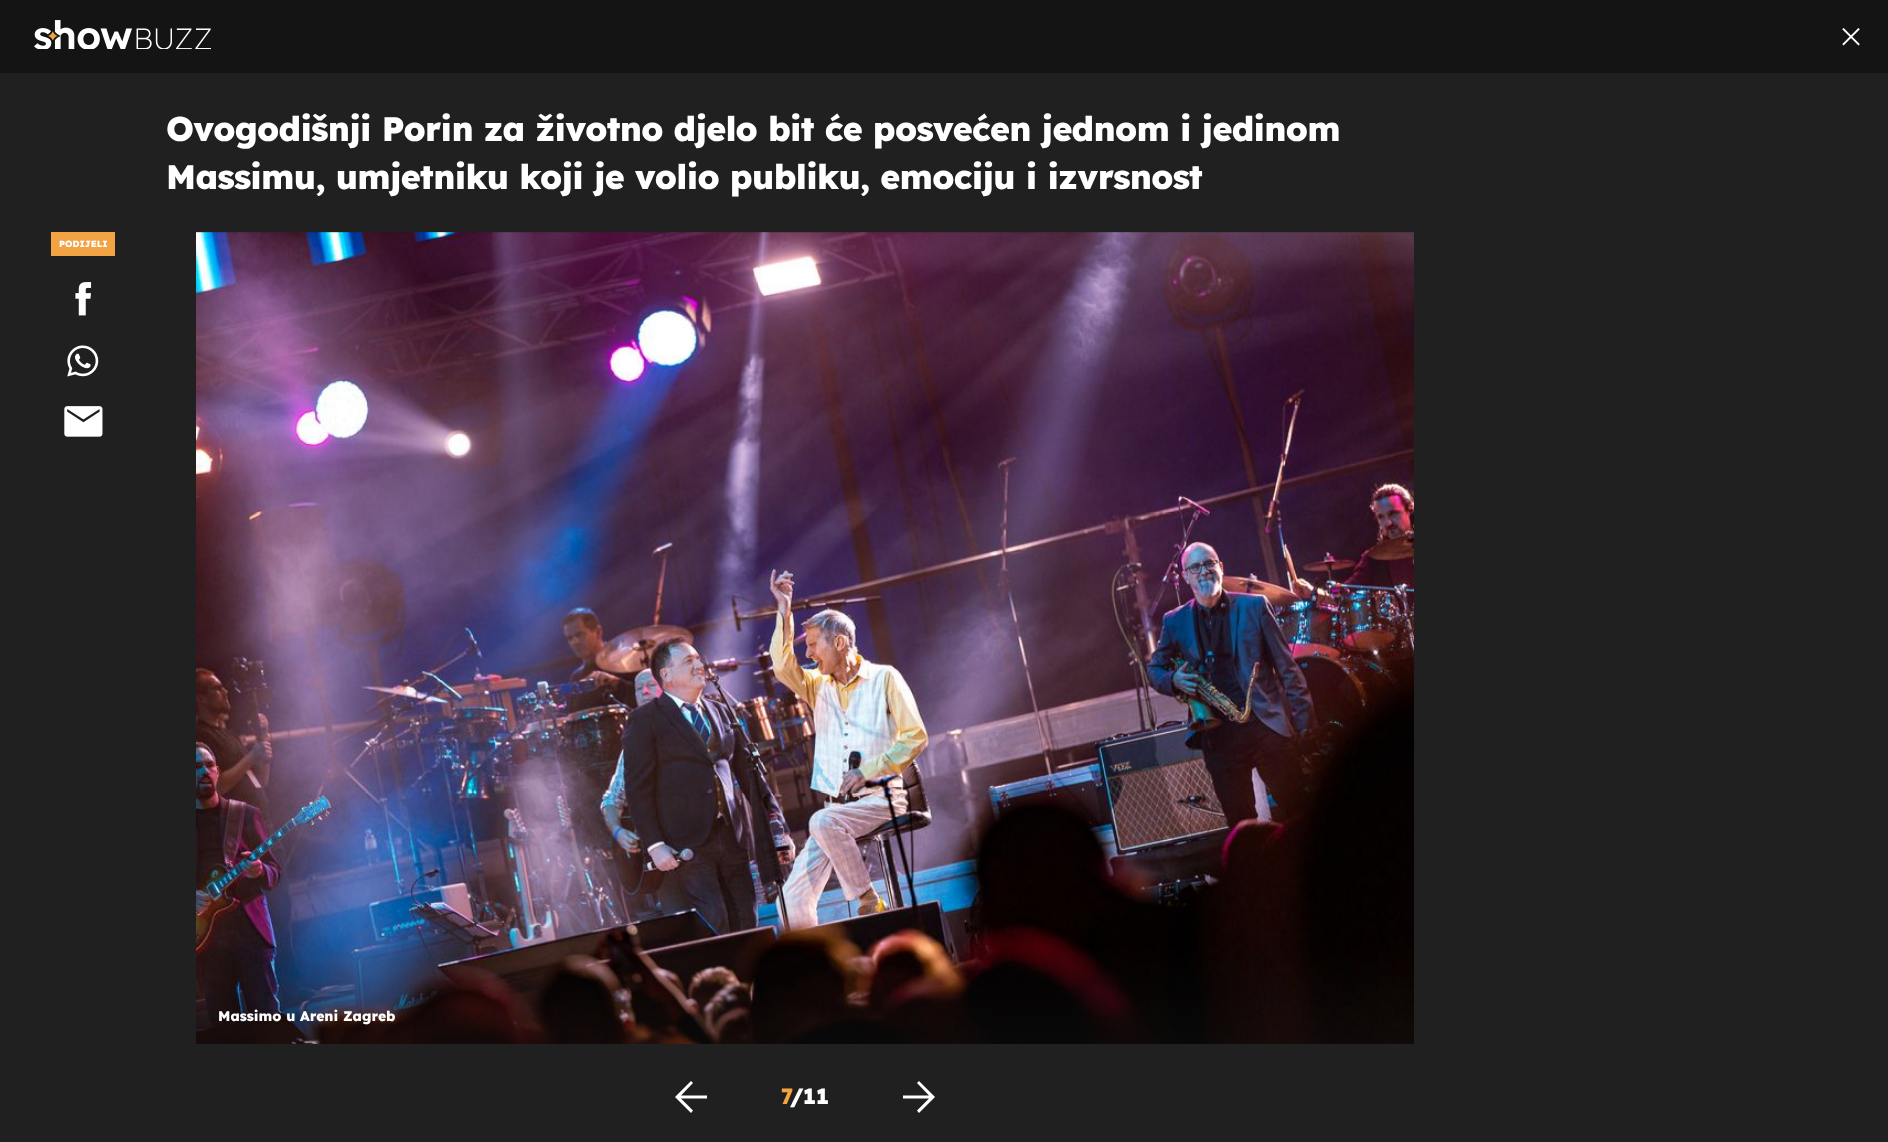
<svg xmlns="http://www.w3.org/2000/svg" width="1888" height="1142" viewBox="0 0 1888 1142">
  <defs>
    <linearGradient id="g1" gradientUnits="userSpaceOnUse" x1="805" y1="1044" x2="805" y2="946"><stop offset="0" stop-color="#141414" stop-opacity="0.4"/><stop offset="1" stop-color="#141414" stop-opacity="0"/></linearGradient>
  </defs>
  <rect width="100%" height="100%" fill="#202020"/>
  <path d="M0 0h1888v73H0z" fill="#141414"/>
  <image x="34" y="20" width="177" height="29" href="img/1.png"/>
  <image x="1842" y="28" width="18" height="18" href="img/2.png"/>
  <path d="M51 232h64v24H51z" fill="#f2a444"/>
  <image x="75" y="282" width="17" height="34" href="img/3.png"/>
  <image x="67" y="345" width="32" height="32" href="img/4.png"/>
  <image x="64" y="406" width="39" height="31" href="img/5.png"/>
  <image x="196" y="232" width="1218" height="812" href="img/6.png"/>
  <path d="M196 951h1218v93H196z" fill="url(#g1)"/>
  <path d="M691 1113L693 1110.5L681 1098.5H707V1095.5H681L693 1083L691 1081L675 1097Z" fill="#fff"/>
  <path d="M919 1113L917 1110.5L929 1098.5H903V1095.5H929L917 1083L919 1081L935 1097Z" fill="#fff"/>
  <g font-family="Lexend" font-size="34" font-weight="800" letter-spacing="-0.68" fill="#fff">
    <text x="166" y="141">Ovogodišnji Porin za životno djelo bit će posvećen jednom i jedinom</text>
    <text x="166" y="189">Massimu, umjetniku koji je volio publiku, emociju i izvrsnost</text>
  </g>
  <text x="59" y="247" font-family="Lexend" font-size="9" font-weight="800" fill="#fff">PODIJELI</text>
  <text x="218" y="1021" font-family="Lexend" font-size="14" font-weight="800" fill="#fff">Massimo u Areni Zagreb</text>
  <text x="781" y="1104" font-family="Lexend" font-size="22" font-weight="800" fill="#f2a444">7</text>
  <g font-family="Lexend" font-size="22" font-weight="800" fill="#fff">
    <text x="790" y="1104">/</text>
    <text x="803" y="1104">11</text>
  </g>
</svg>
